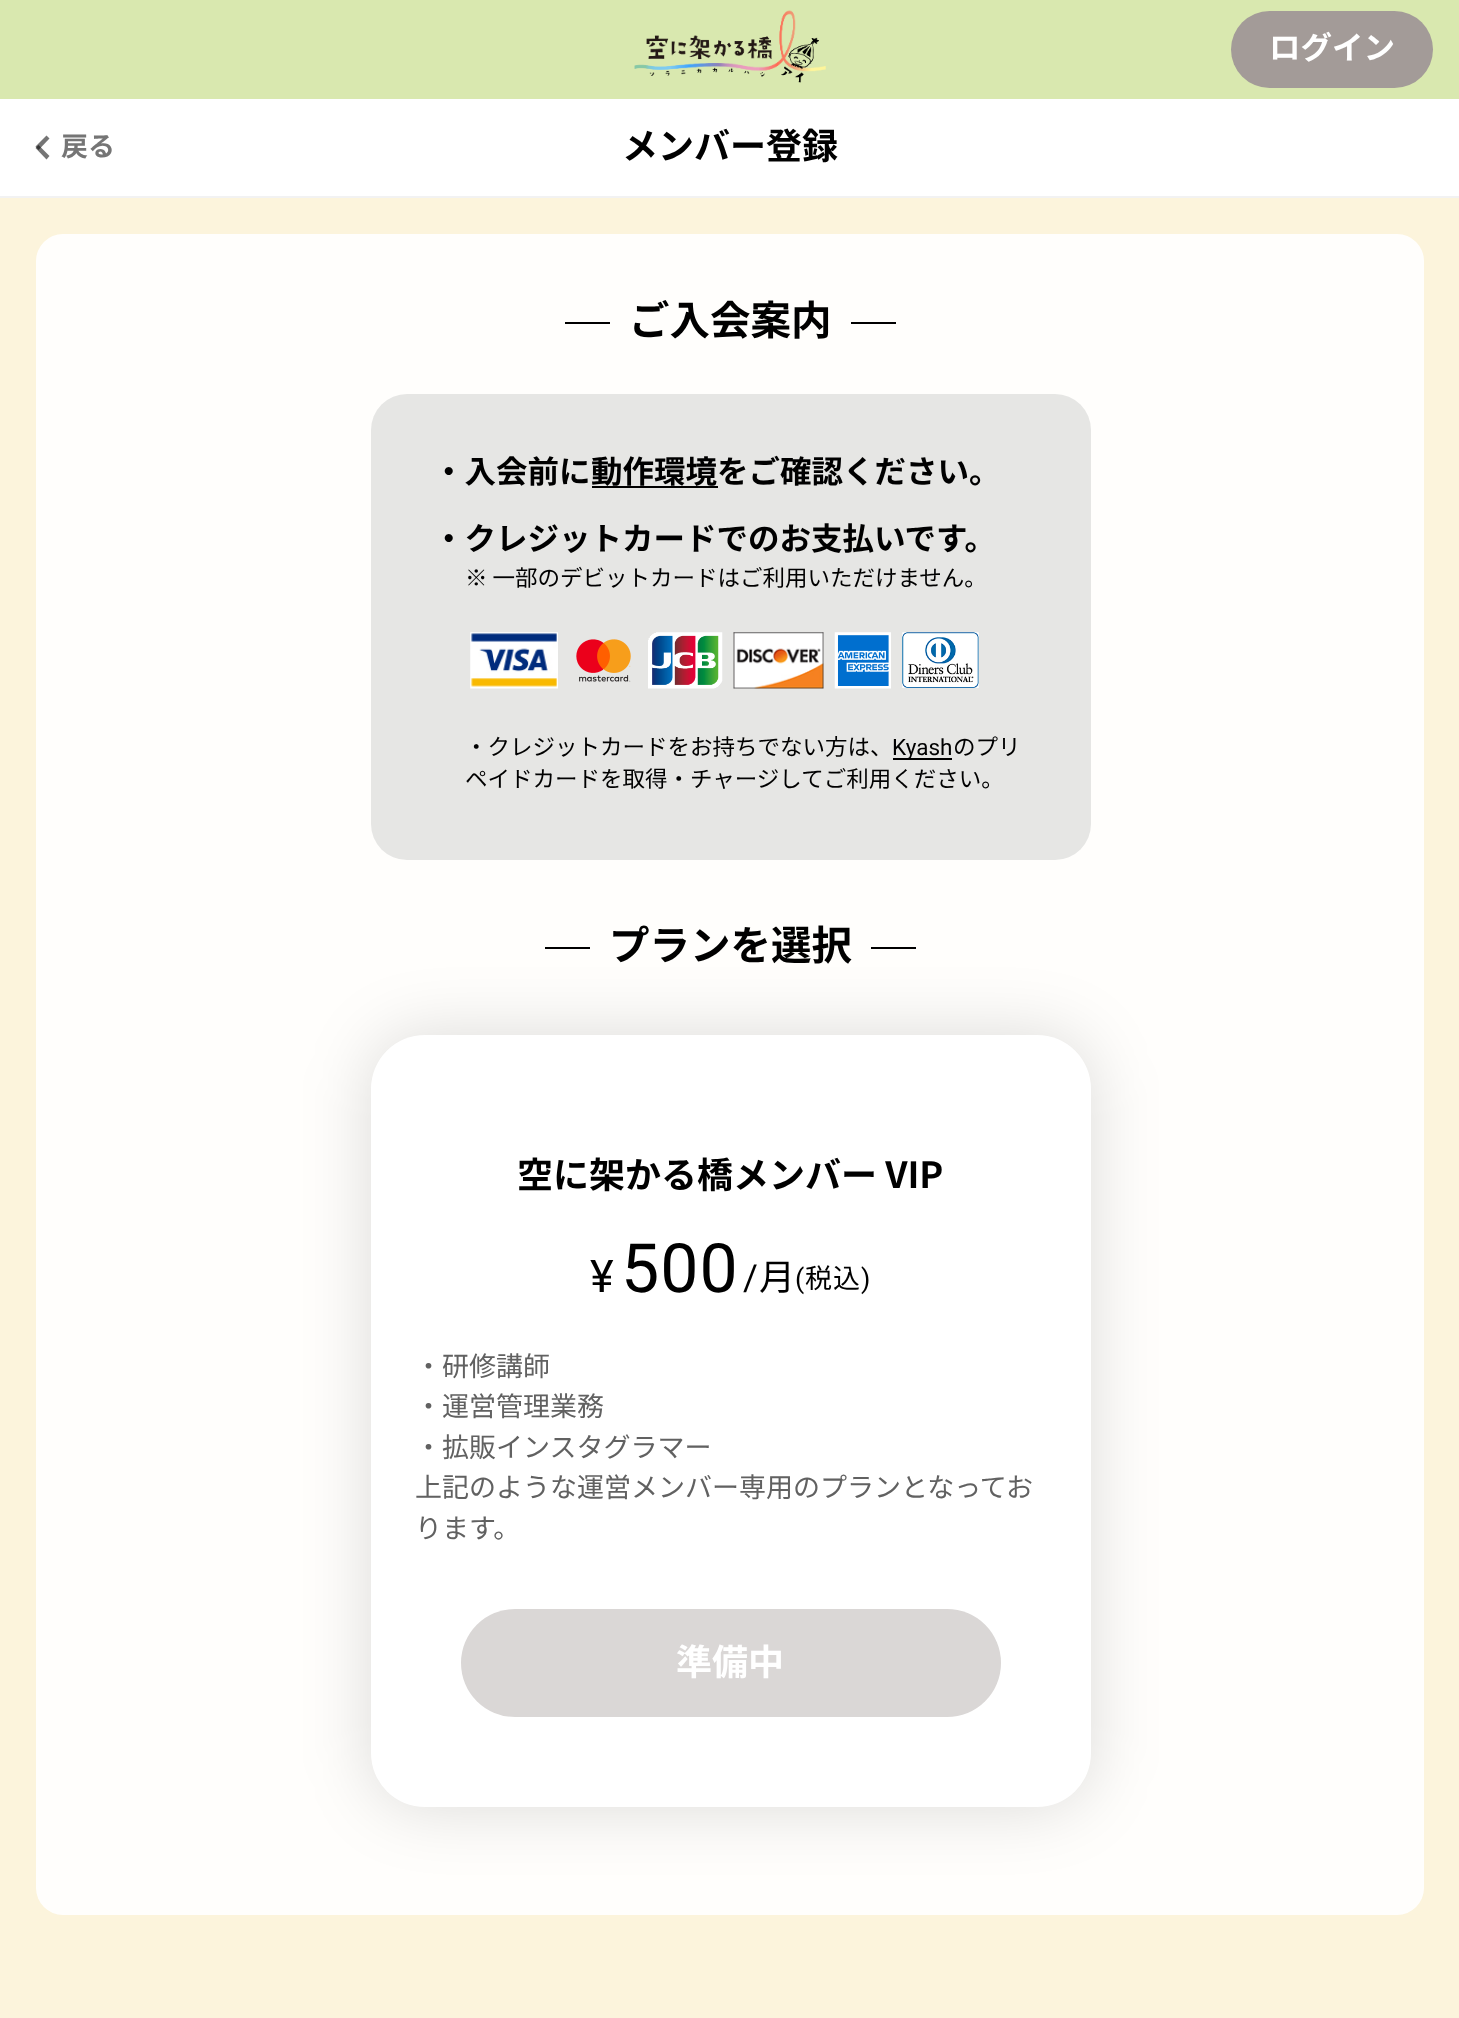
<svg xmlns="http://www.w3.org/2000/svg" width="1459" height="2018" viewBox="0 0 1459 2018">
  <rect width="100%" height="100%" fill="#fcf4dc"/>
  <path d="M0 0h1459v99H0z" fill="#d9e8af"/>
  <image x="634" y="10" width="192" height="73" href="img/1.png"/>
  <rect x="1231" y="11" width="202" height="77" rx="38.5" fill="#a39b98"/>
  <path d="M0 99h1459v97H0z" fill="#fff"/>
  <path d="M0 196h1459v2H0z" fill="#f2f2f2"/>
  <path d="M46.5 159.5L35.5 148L38.5 145L49.5 156Z" fill="#757575"/>
  <path d="M38.5 150L35.5 146.5L46.5 135.5L49.5 138.5Z" fill="#0000008a"/>
  <rect x="36" y="234" width="1388" height="1681" rx="27" fill="#fffefc"/>
  <path d="M565 322h45v2H565z" fill="#000"/>
  <path d="M851 322h45v2H851z" fill="#000"/>
  <rect x="371" y="394" width="720" height="466" rx="36" fill="#e6e6e4"/>
  <path d="M592 486h126v2H592z" fill="#000"/>
  <image x="470" y="632" width="88" height="57" href="img/2.png"/>
  <image x="576" y="639" width="55" height="43" href="img/3.png"/>
  <image x="648" y="632" width="75" height="57" href="img/4.png"/>
  <image x="733" y="632" width="91" height="57" href="img/5.png"/>
  <image x="834" y="632" width="57" height="57" href="img/6.png"/>
  <image x="902" y="632" width="77" height="56" href="img/7.png"/>
  <path d="M893 758h59v2H893z" fill="#000"/>
  <path d="M545 947h45v2H545z" fill="#000"/>
  <path d="M871 947h45v2H871z" fill="#000"/>
  <rect x="371" y="1035" width="720" height="772" rx="54" fill="#00000024" filter="blur(34px)"/>
  <rect x="371" y="1035" width="720" height="772" rx="54" fill="#fff"/>
  <rect x="461" y="1609" width="540" height="108" rx="54" fill="#dad7d6"/>
  <text x="1269" y="59" font-family="Noto Sans JP" font-size="31.5" font-weight="bold" fill="#fff">ログイン</text>
  <text x="61" y="156" font-family="Noto Sans JP" font-size="27" font-weight="bold" fill="#757575">戻る</text>
  <text x="622" y="159" font-family="Noto Sans JP" font-size="36" font-weight="bold" fill="#000">メンバー登録</text>
  <text x="629" y="335" font-family="Noto Sans JP" font-size="40.5" font-weight="bold" fill="#000">ご入会案内</text>
  <g font-family="Noto Sans JP" font-size="31.5" font-weight="bold" fill="#000">
    <text x="433" y="483">・入会前に</text>
    <text x="591" y="483">動作環境をご確認ください。</text>
    <text x="433" y="550">・クレジットカードでのお支払いです。</text>
  </g>
  <g font-family="Noto Sans JP" font-size="22.5" fill="#000">
    <text x="465" y="586">※ 一部のデビットカードはご利用いただけません。</text>
    <text x="465" y="755">・クレジットカードをお持ちでない方は、</text>
  </g>
  <text x="892" y="755" font-family="Roboto" font-size="22.5" fill="#000">Kyash</text>
  <g font-family="Noto Sans JP" font-size="22.5" fill="#000">
    <text x="953" y="755">のプリ</text>
    <text x="465" y="787">ペイドカードを取得・チャージしてご利用ください。</text>
  </g>
  <text x="609" y="960" font-family="Noto Sans JP" font-size="40.5" font-weight="bold" fill="#000">プランを選択</text>
  <text x="517" y="1188" font-family="Noto Sans JP" font-size="36" font-weight="bold" fill="#000">空に架かる橋メンバー VIP</text>
  <text x="590" y="1292" font-family="Roboto" font-size="45" letter-spacing="1" fill="#000">¥</text>
  <text x="621" y="1292" font-family="Roboto" font-size="68" letter-spacing="1" fill="#000">500</text>
  <text x="743" y="1290" font-family="Roboto" font-size="36" letter-spacing="1" fill="#000">/</text>
  <text x="759" y="1290" font-family="Noto Sans JP" font-size="36" letter-spacing="1" fill="#000">月</text>
  <text x="795" y="1288" font-family="Roboto" font-size="27" letter-spacing="1" fill="#000">(</text>
  <text x="805" y="1288" font-family="Noto Sans JP" font-size="27" letter-spacing="1" fill="#000">税込</text>
  <text x="861" y="1288" font-family="Roboto" font-size="27" letter-spacing="1" fill="#000">)</text>
  <g font-family="Noto Sans JP" font-size="27" fill="#616161">
    <text x="415" y="1376">・研修講師</text>
    <text x="415" y="1416">・運営管理業務</text>
    <text x="415" y="1457">・拡販インスタグラマー</text>
    <text x="415" y="1497">上記のような運営メンバー専用のプランとなってお</text>
    <text x="415" y="1538">ります。</text>
  </g>
  <text x="676" y="1675" font-family="Noto Sans JP" font-size="36" font-weight="bold" fill="#fff">準備中</text>
</svg>
